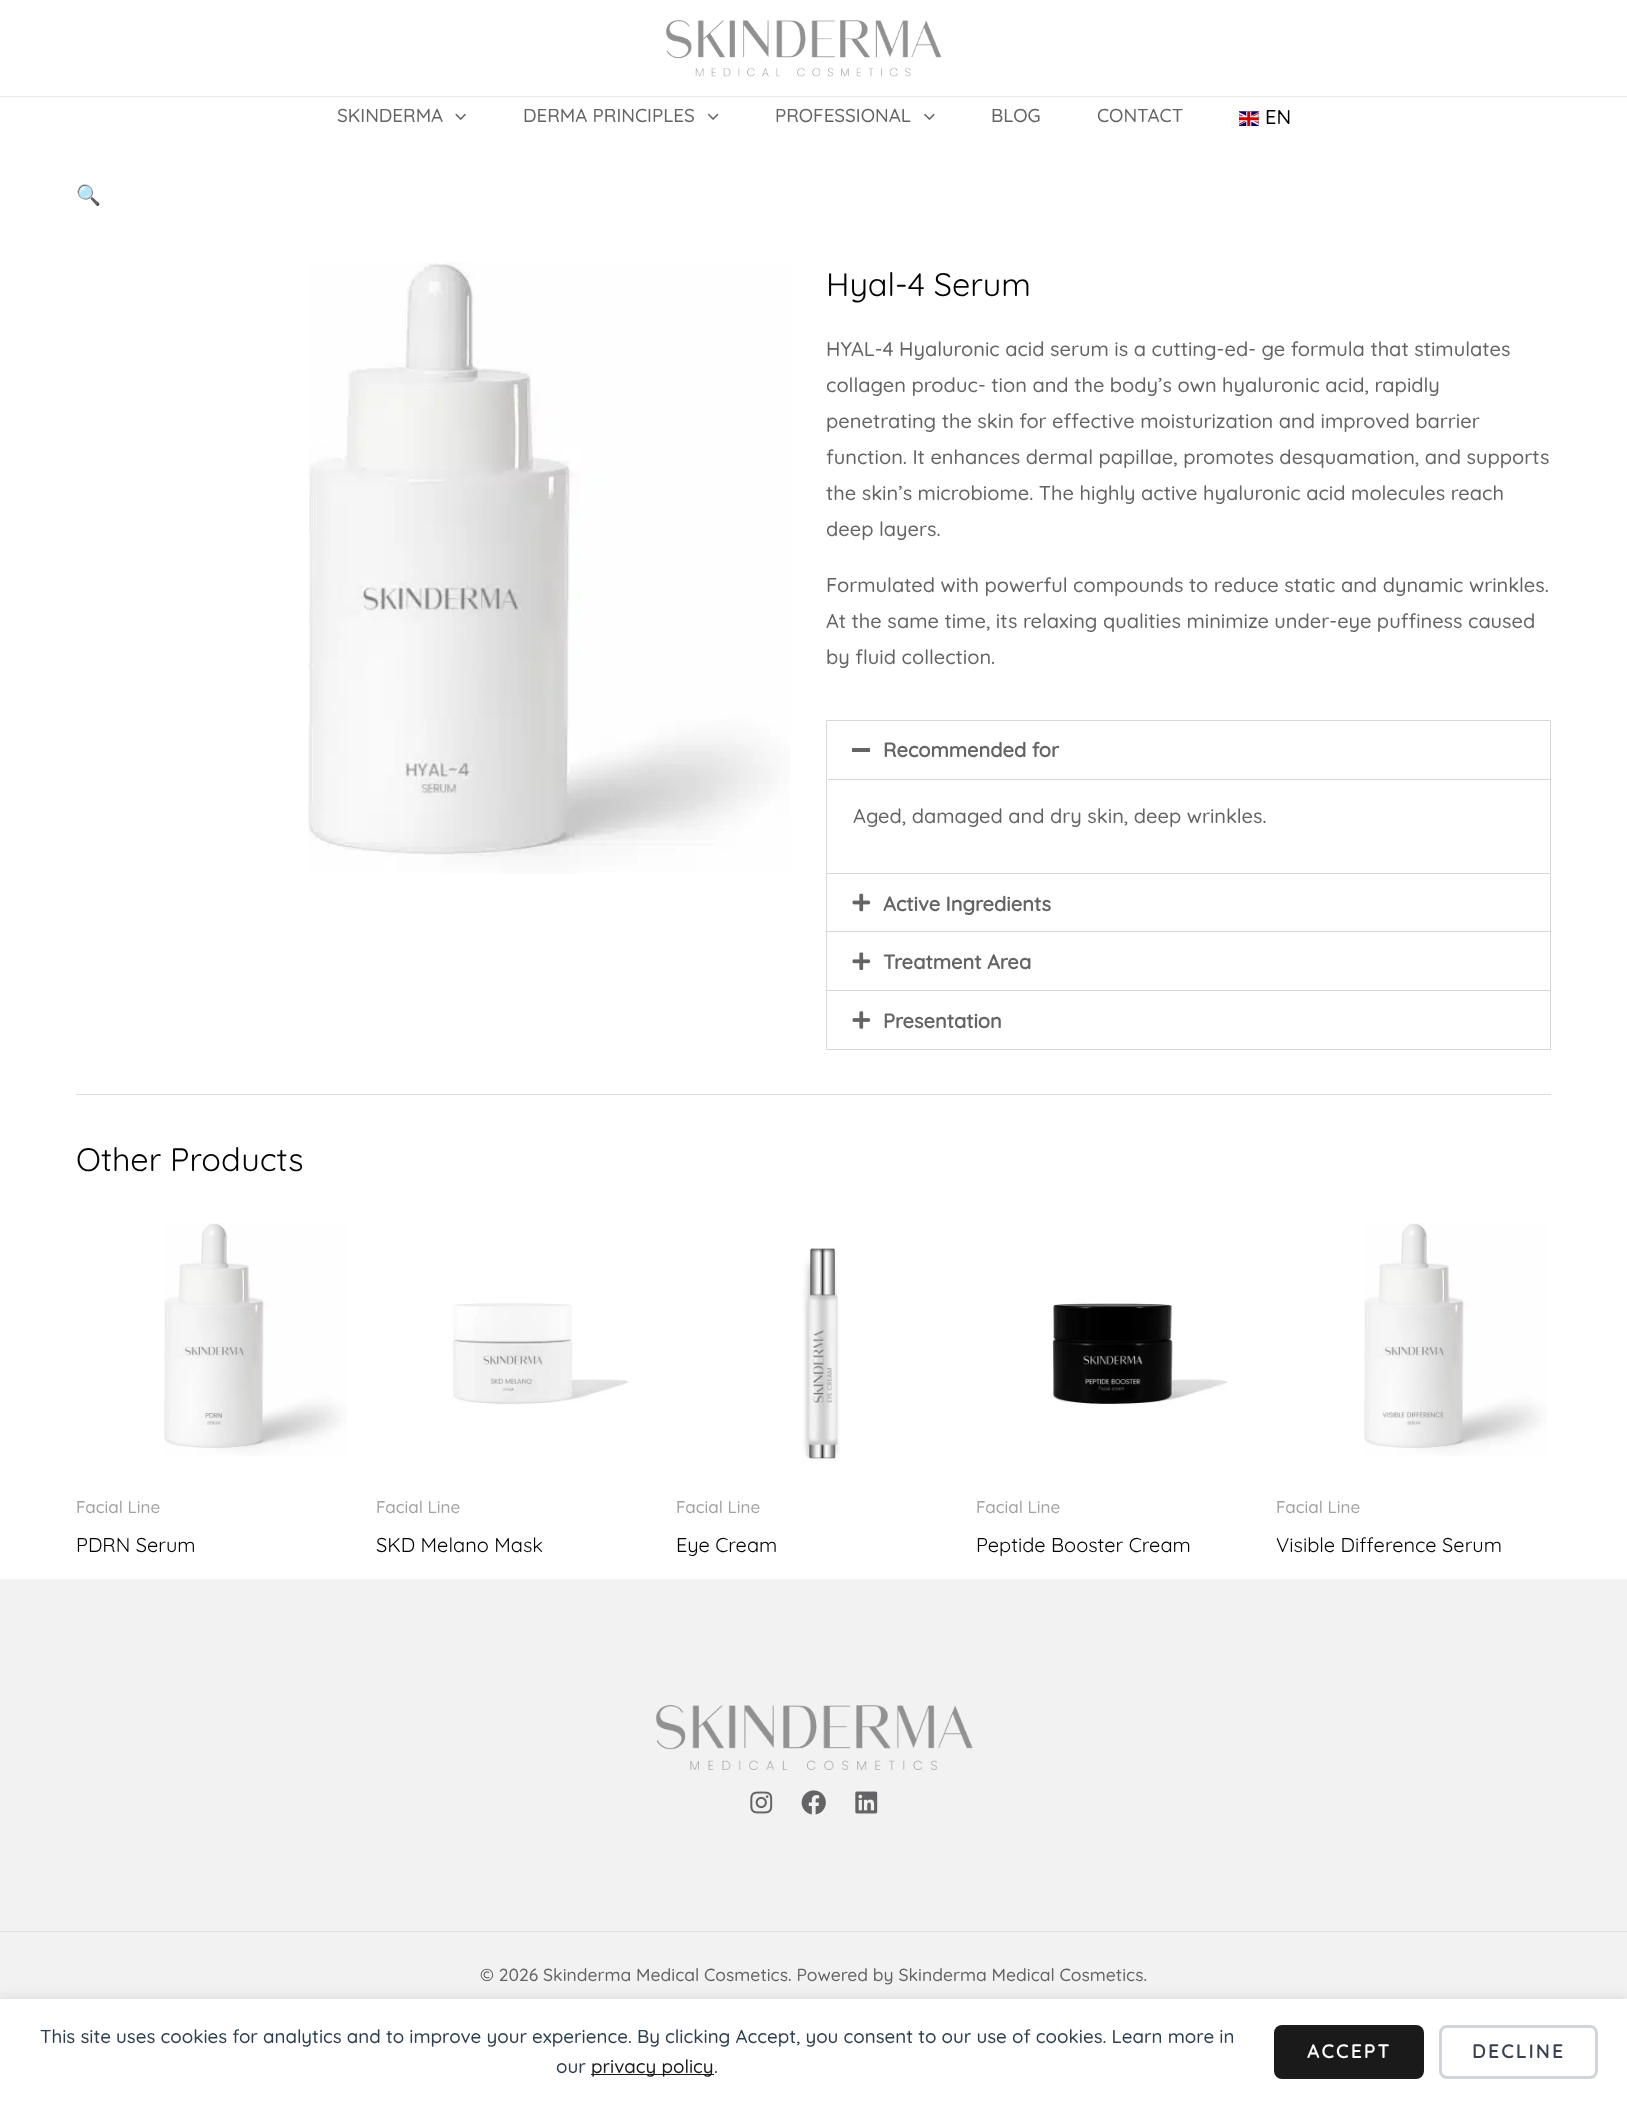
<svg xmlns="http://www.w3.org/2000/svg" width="1627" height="2103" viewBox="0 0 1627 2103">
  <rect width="100%" height="100%" fill="#fff"/>
  <path d="M0 96h1627v1H0z" fill="#eaeaea"/>
  <image x="666" y="20" width="276" height="57" href="img/1.png"/>
  <image x="455" y="113" width="11" height="7" href="img/2.png"/>
  <image x="708" y="113" width="11" height="7" href="img/3.png"/>
  <image x="924" y="113" width="11" height="7" href="img/4.png"/>
  <image x="1239" y="111" width="20" height="15" href="img/5.png"/>
  <image x="308" y="262" width="482" height="612" href="img/6.png"/>
  <path d="M826.5 720.5h724v153H826.5z" fill="none" stroke="#d5d8dc"/>
  <path d="M852 748h18v4H852z" fill="#646467"/>
  <path d="M828 779h722v1H828z" fill="#d5d8dc"/>
  <path d="M1550 874h1v176H1550z" fill="#d5d8dc"/>
  <path d="M826 931h725v1H826z" fill="#d5d8dc"/>
  <path d="M826 874h1v59H826z" fill="#d5d8dc"/>
  <image x="852" y="893" width="18" height="19" href="img/7.png"/>
  <path d="M826 990h725v1H826z" fill="#d5d8dc"/>
  <path d="M826 933h1v58H826z" fill="#d5d8dc"/>
  <image x="852" y="952" width="18" height="18" href="img/8.png"/>
  <path d="M826 1049h725v1H826z" fill="#d5d8dc"/>
  <path d="M826 991h1v59H826z" fill="#d5d8dc"/>
  <image x="852" y="1011" width="18" height="18" href="img/9.png"/>
  <path d="M76 1094h1475v1H76z" fill="#dedede"/>
  <image x="164" y="1223" width="183" height="233" href="img/10.png"/>
  <image x="452" y="1303" width="177" height="102" href="img/11.png"/>
  <image x="802" y="1247" width="38" height="215" href="img/12.png"/>
  <image x="1052" y="1302" width="176" height="103" href="img/13.png"/>
  <image x="1364" y="1223" width="183" height="233" href="img/14.png"/>
  <path d="M0 1579h1627v420H0z" fill="#f2f2f2"/>
  <image x="656" y="1705" width="317" height="65" href="img/15.png"/>
  <image x="750" y="1791" width="23" height="23" href="img/16.png"/>
  <image x="801" y="1790" width="25" height="25" href="img/17.png"/>
  <image x="855" y="1791" width="23" height="23" href="img/18.png"/>
  <path d="M0 1931h1627v1H0z" fill="#dfdfdf"/>
  <path d="M0 1996h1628v105H0z" fill="#00000014" filter="blur(6px)"/>
  <path d="M0 1999h1627v104H0z" fill="#fff"/>
  <path d="M591 2074h123v1H591z" fill="#1a1a1a"/>
  <rect x="1274" y="2025" width="150" height="54" rx="8" fill="#1a1a1a"/>
  <rect x="1440.5" y="2026.5" width="156" height="51" rx="6.5" fill="none" stroke="#d1d5db" stroke-width="3"/>
  <g font-family="Quicksand" font-size="18.75" font-weight="500" fill="#646467">
    <text x="337" y="122">SKINDERMA</text>
    <text x="523" y="122">DERMA PRINCIPLES</text>
    <text x="775" y="122">PROFESSIONAL</text>
    <text x="991" y="122">BLOG</text>
    <text x="1097" y="122">CONTACT</text>
  </g>
  <text x="1265" y="124" font-family="Quicksand" font-size="20" font-weight="500" fill="#000">EN</text>
  <text x="76" y="202" font-family="Noto Color Emoji" font-size="20" fill="#000">🔍</text>
  <text x="826" y="296" font-family="Quicksand" font-size="32.5" fill="#000">Hyal-4 Serum</text>
  <g font-family="Quicksand" font-size="20" font-weight="500" fill="#646467">
    <text x="826" y="356">HYAL-4 Hyaluronic acid serum is a cutting-ed- ge formula that stimulates</text>
    <text x="826" y="392">collagen produc- tion and the body’s own hyaluronic acid, rapidly</text>
    <text x="826" y="428">penetrating the skin for effective moisturization and improved barrier</text>
    <text x="826" y="464">function. It enhances dermal papillae, promotes desquamation, and supports</text>
    <text x="826" y="500">the skin’s microbiome. The highly active hyaluronic acid molecules reach</text>
    <text x="826" y="536">deep layers.</text>
    <text x="826" y="592">Formulated with powerful compounds to reduce static and dynamic wrinkles.</text>
    <text x="826" y="628">At the same time, its relaxing qualities minimize under-eye puffiness caused</text>
    <text x="826" y="664">by fluid collection.</text>
  </g>
  <text x="883" y="757" font-family="Quicksand" font-size="20" font-weight="bold" fill="#646467">Recommended for</text>
  <text x="853" y="823" font-family="Quicksand" font-size="20" font-weight="500" fill="#646467">Aged, damaged and dry skin, deep wrinkles.</text>
  <g font-family="Quicksand" font-size="20" font-weight="bold" fill="#646467">
    <text x="883" y="911">Active Ingredients</text>
    <text x="883" y="969">Treatment Area</text>
    <text x="883" y="1028">Presentation</text>
  </g>
  <text x="76" y="1171" font-family="Quicksand" font-size="32.5" fill="#000">Other Products</text>
  <text x="76" y="1513" font-family="Quicksand" font-size="17" font-weight="500" fill="#a2a2a4">Facial Line</text>
  <text x="76" y="1552" font-family="Quicksand" font-size="20" fill="#000">PDRN Serum</text>
  <text x="376" y="1513" font-family="Quicksand" font-size="17" font-weight="500" fill="#a2a2a4">Facial Line</text>
  <text x="376" y="1552" font-family="Quicksand" font-size="20" fill="#000">SKD Melano Mask</text>
  <text x="676" y="1513" font-family="Quicksand" font-size="17" font-weight="500" fill="#a2a2a4">Facial Line</text>
  <text x="676" y="1552" font-family="Quicksand" font-size="20" fill="#000">Eye Cream</text>
  <text x="976" y="1513" font-family="Quicksand" font-size="17" font-weight="500" fill="#a2a2a4">Facial Line</text>
  <text x="976" y="1552" font-family="Quicksand" font-size="20" fill="#000">Peptide Booster Cream</text>
  <text x="1276" y="1513" font-family="Quicksand" font-size="17" font-weight="500" fill="#a2a2a4">Facial Line</text>
  <text x="1276" y="1552" font-family="Quicksand" font-size="20" fill="#000">Visible Difference Serum</text>
  <text x="480" y="1981" font-family="Quicksand" font-size="17.5" font-weight="500" fill="#646467">© 2026 Skinderma Medical Cosmetics. Powered by Skinderma Medical Cosmetics.</text>
  <g font-family="Quicksand" font-size="18.75" font-weight="500" fill="#2c3e50">
    <text x="40" y="2043">This site uses cookies for analytics and to improve your experience. By clicking Accept, you consent to our use of cookies. Learn more in</text>
    <text x="556" y="2073">our</text>
  </g>
  <text x="591" y="2073" font-family="Quicksand" font-size="18.75" font-weight="500" fill="#1a1a1a">privacy policy</text>
  <text x="714" y="2073" font-family="Quicksand" font-size="18.75" font-weight="500" fill="#2c3e50">.</text>
  <text x="1307" y="2058" font-family="Quicksand" font-size="18.75" font-weight="bold" letter-spacing="2.5" fill="#fff">ACCEPT</text>
  <text x="1472" y="2058" font-family="Quicksand" font-size="18.75" font-weight="bold" letter-spacing="2.5" fill="#374151">DECLINE</text>
</svg>
